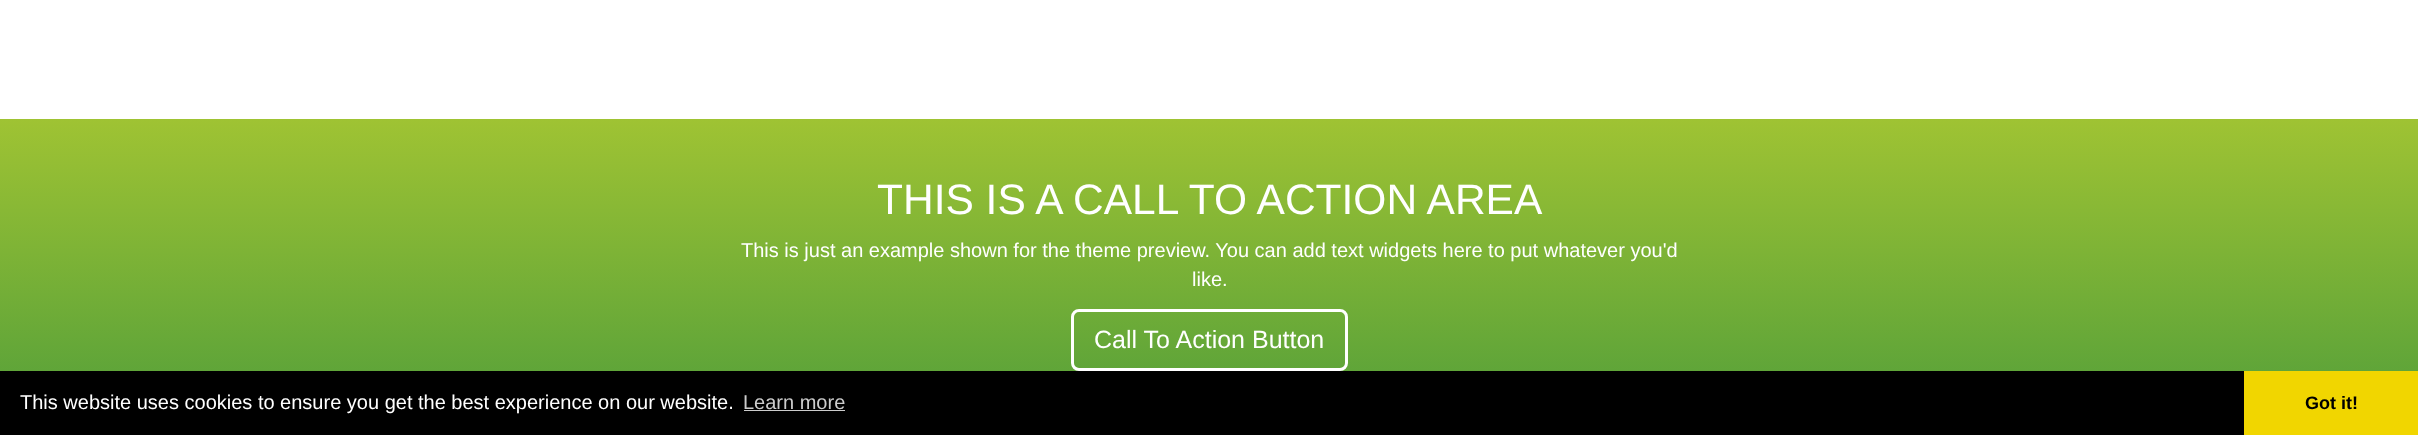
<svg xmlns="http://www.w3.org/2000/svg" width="2418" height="435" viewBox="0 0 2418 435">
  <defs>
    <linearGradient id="g1" gradientUnits="userSpaceOnUse" x1="1209" y1="119" x2="1209" y2="429"><stop offset="0" stop-color="#9fc333"/><stop offset="1" stop-color="#519e3a"/></linearGradient>
  </defs>
  <rect width="100%" height="100%" fill="#fff"/>
  <path d="M0 119h2418v252H0z" fill="url(#g1)"/>
  <rect x="1072.5" y="310.5" width="274" height="59" rx="6.5" fill="none" stroke="#fff" stroke-width="3"/>
  <path d="M0 371h2244v64H0z" fill="#000"/>
  <path d="M744 410h101v1H744z" fill="#ccc"/>
  <path d="M2244 371h174v64H2244z" fill="#f1d600"/>
  <text x="877" y="214" font-family="Liberation Sans" font-size="42.5" fill="#fff">THIS IS A CALL TO ACTION AREA</text>
  <g font-family="Liberation Sans" font-size="20" fill="#fff">
    <text x="741" y="257">This is just an example shown for the theme preview. You can add text widgets here to put whatever you'd</text>
    <text x="1192" y="286">like.</text>
  </g>
  <text x="1094" y="348" font-family="Liberation Sans" font-size="25" fill="#fff">Call To Action Button</text>
  <text x="20" y="409" font-family="Liberation Sans" font-size="20" fill="#fff">This website uses cookies to ensure you get the best experience on our website.</text>
  <text x="743" y="409" font-family="Liberation Sans" font-size="20" fill="#ccc">Learn more</text>
  <text x="2305" y="409" font-family="Liberation Sans" font-size="18" font-weight="bold" fill="#000">Got it!</text>
</svg>
